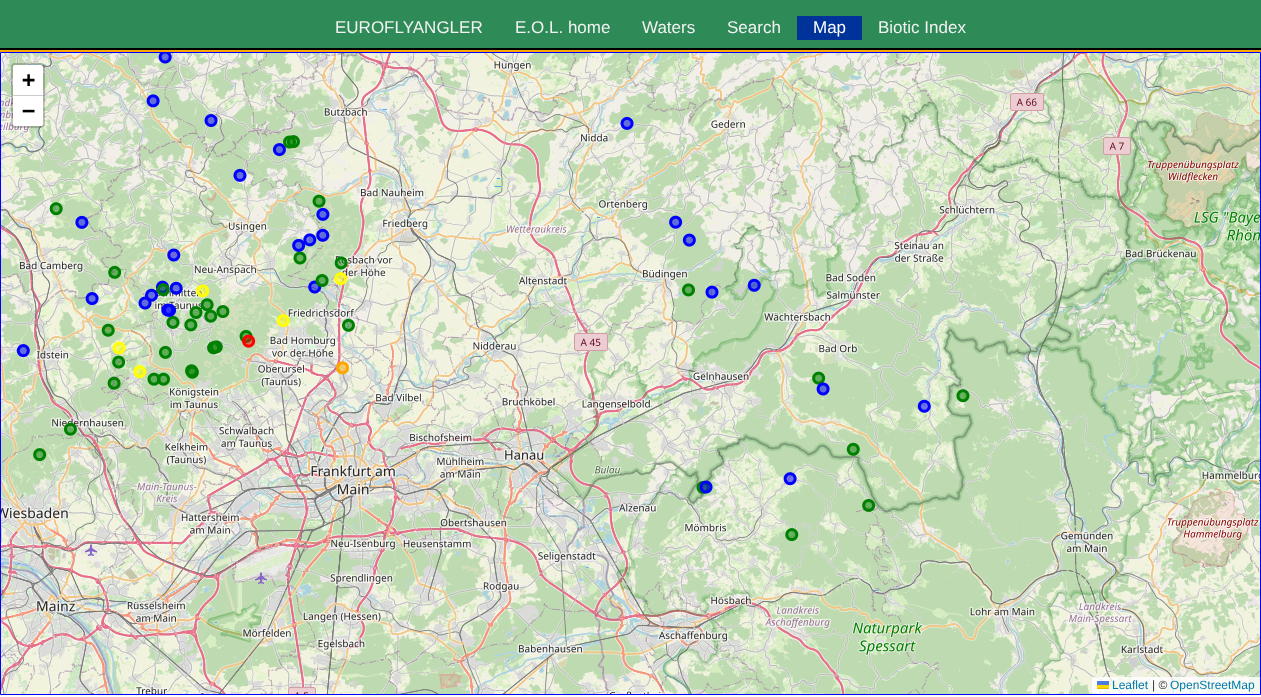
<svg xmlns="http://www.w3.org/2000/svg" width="1261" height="697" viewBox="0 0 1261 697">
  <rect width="100%" height="100%" fill="#fff"/>
  <path d="M0 48h1261v2H0z" fill="#000"/>
  <path d="M0 50h1261v2H0z" fill="#ffa500"/>
  <path d="M0 0h1261v48H0z" fill="#2e8b57"/>
  <path d="M797 16h65v24H797z" fill="#039"/>
  <path d="M0.5 52.5h1260v642H0.5z" fill="none" stroke="#00f"/>
  <image x="1" y="53" width="174" height="224" href="img/1.png"/>
  <image x="175" y="53" width="256" height="224" href="img/2.png"/>
  <image x="431" y="53" width="256" height="224" href="img/3.png"/>
  <image x="687" y="53" width="256" height="224" href="img/4.png"/>
  <image x="943" y="53" width="256" height="224" href="img/5.png"/>
  <image x="1199" y="53" width="61" height="224" href="img/6.png"/>
  <image x="1" y="277" width="174" height="256" href="img/7.png"/>
  <image x="175" y="277" width="256" height="256" href="img/8.png"/>
  <image x="431" y="277" width="256" height="256" href="img/9.png"/>
  <image x="687" y="277" width="256" height="256" href="img/10.png"/>
  <image x="943" y="277" width="256" height="256" href="img/11.png"/>
  <image x="1199" y="277" width="61" height="256" href="img/12.png"/>
  <image x="1" y="533" width="174" height="161" href="img/13.png"/>
  <image x="175" y="533" width="256" height="161" href="img/14.png"/>
  <image x="431" y="533" width="256" height="161" href="img/15.png"/>
  <image x="687" y="533" width="256" height="161" href="img/16.png"/>
  <image x="943" y="533" width="256" height="161" href="img/17.png"/>
  <image x="1199" y="533" width="61" height="161" href="img/18.png"/>
  <image x="16" y="53" width="954" height="489" href="img/19.png"/>
  <rect x="12" y="64" width="32" height="63" rx="3" fill="none" stroke="#00000033" stroke-width="2"/>
  <path d="M15 65H41C42 65 43 66 43 67V96H13V67C13 66 14 65 15 65Z" fill="#fff"/>
  <path d="M13 95h30v1H13z" fill="#ccc"/>
  <path d="M13 96H43V124C43 125 42 126 41 126H15C14 126 13 125 13 124Z" fill="#fff"/>
  <path d="M1092 677h168v17H1092z" fill="#ffffffcc"/>
  <path d="M1097 681h12v4H1097z" fill="#4c7be1"/>
  <path d="M1097 685h12v3H1097z" fill="#ffd500"/>
  <path d="M1097 688h12v1H1097z" fill="#e0bc00"/>
  <g font-family="Liberation Sans" font-size="17" fill="#f2f2f2">
    <text x="335" y="33">EUROFLYANGLER</text>
    <text x="515" y="33">E.O.L. home</text>
    <text x="642" y="33">Waters</text>
    <text x="727" y="33">Search</text>
  </g>
  <text x="813" y="33" font-family="Liberation Sans" font-size="17" fill="#fff">Map</text>
  <text x="878" y="33" font-family="Liberation Sans" font-size="17" fill="#f2f2f2">Biotic Index</text>
  <g font-family="DejaVu Sans Mono" font-size="22" font-weight="bold" fill="#000">
    <text x="22" y="87">+</text>
    <text x="22" y="118">−</text>
  </g>
  <text x="1112" y="689" font-family="Liberation Sans" font-size="12" fill="#0078a8">Leaflet</text>
  <text x="1152" y="689" font-family="Liberation Sans" font-size="12" fill="#333">| ©</text>
  <text x="1170" y="689" font-family="Liberation Sans" font-size="12" fill="#0078a8">OpenStreetMap</text>
</svg>
